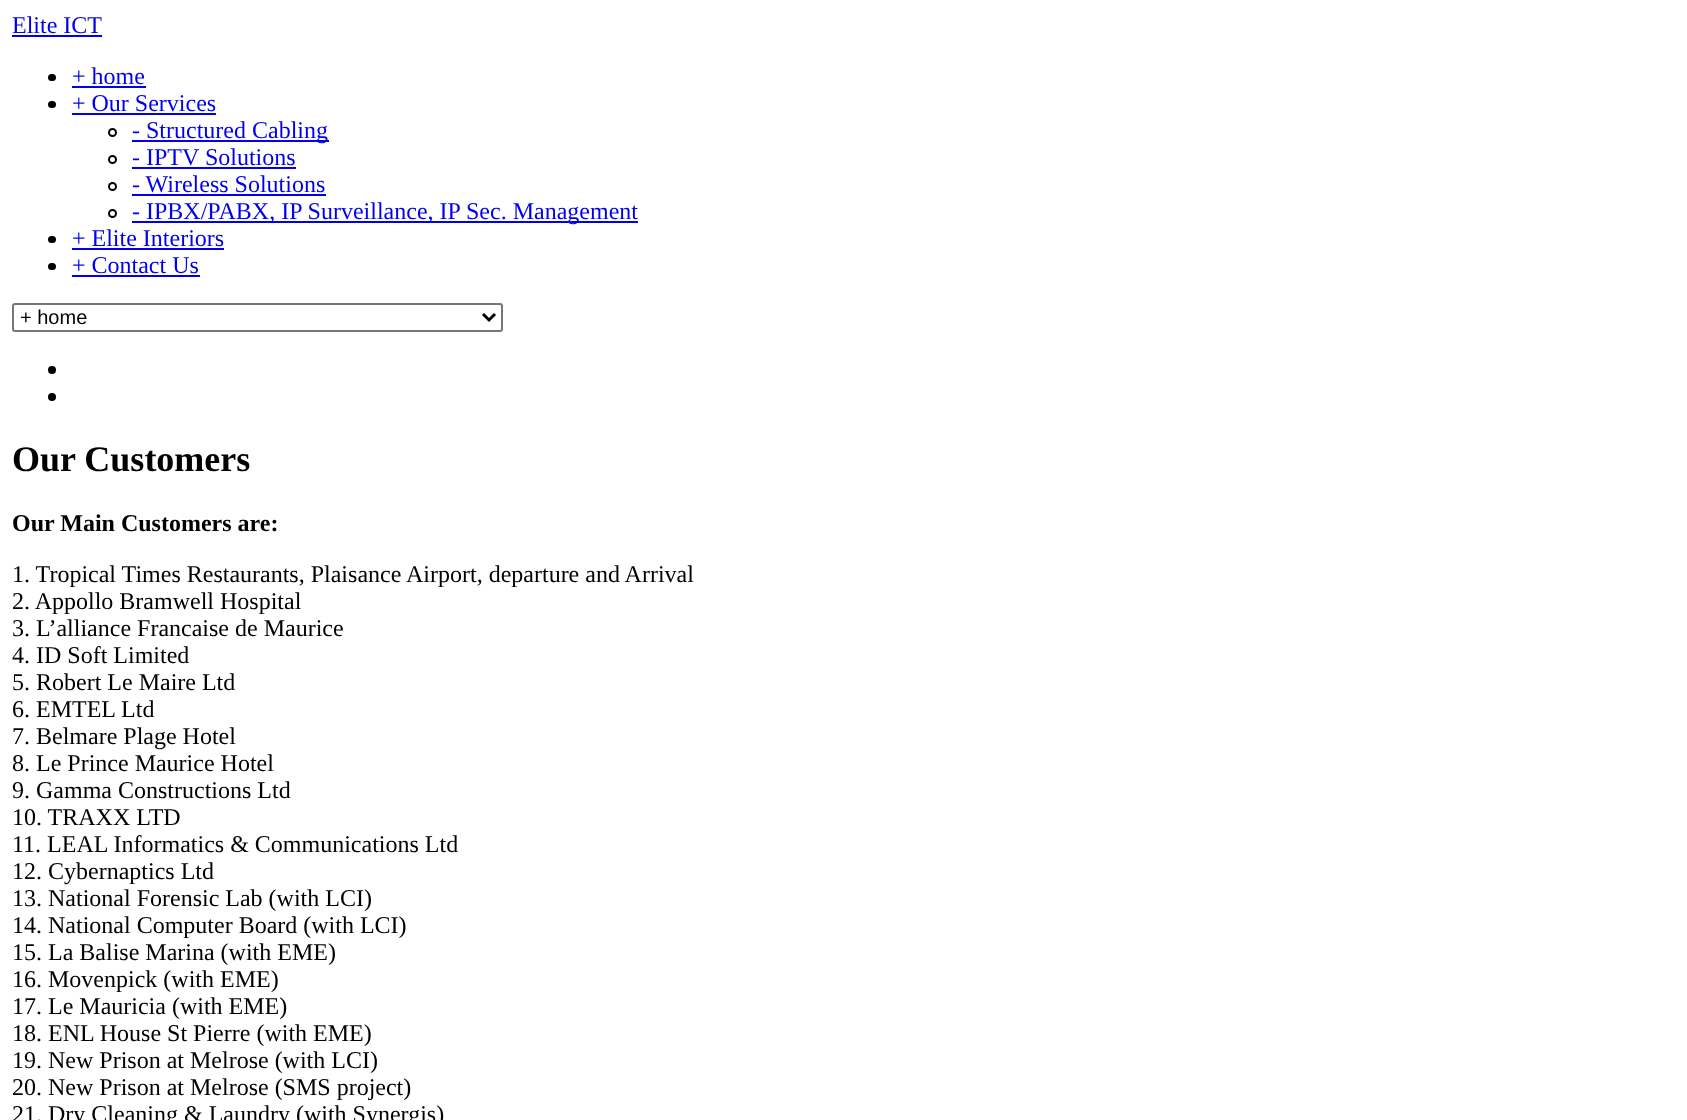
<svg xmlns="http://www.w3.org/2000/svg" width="1687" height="1120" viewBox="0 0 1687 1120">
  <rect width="100%" height="100%" fill="#fff"/>
  <path d="M12 35h90v2H12z" fill="#00e"/>
  <rect x="48" y="74" width="8" height="7" rx="3.5" fill="#000"/>
  <path d="M72 86h74v2H72z" fill="#00e"/>
  <rect x="48" y="101" width="8" height="7" rx="3.5" fill="#000"/>
  <path d="M72 113h144v2H72z" fill="#00e"/>
  <circle cx="112.5" cy="132.5" r="3.5" fill="none" stroke="#000" stroke-width="2"/>
  <path d="M132 140h197v2H132z" fill="#00e"/>
  <circle cx="112.5" cy="159.5" r="3.5" fill="none" stroke="#000" stroke-width="2"/>
  <path d="M132 167h164v2H132z" fill="#00e"/>
  <circle cx="112.5" cy="186.5" r="3.5" fill="none" stroke="#000" stroke-width="2"/>
  <path d="M132 194h194v2H132z" fill="#00e"/>
  <circle cx="112.5" cy="213.5" r="3.5" fill="none" stroke="#000" stroke-width="2"/>
  <path d="M132 221h506v2H132z" fill="#00e"/>
  <rect x="48" y="236" width="8" height="7" rx="3.5" fill="#000"/>
  <path d="M72 248h152v2H72z" fill="#00e"/>
  <rect x="48" y="263" width="8" height="7" rx="3.5" fill="#000"/>
  <path d="M72 275h128v2H72z" fill="#00e"/>
  <rect x="13" y="304" width="489" height="27" rx="2" fill="none" stroke="#767676" stroke-width="2"/>
  <path d="M483 314L489 320L495 314" fill="none" stroke="#000" stroke-width="3"/>
  <circle cx="52" cy="370" r="4" fill="#000"/>
  <circle cx="52" cy="397" r="4" fill="#000"/>
  <g font-family="Liberation Serif" font-size="24" fill="#00e">
    <text x="12" y="33">Elite ICT</text>
    <text x="72" y="84">+ home</text>
    <text x="72" y="111">+ Our Services</text>
    <text x="132" y="138">- Structured Cabling</text>
    <text x="132" y="165">- IPTV Solutions</text>
    <text x="132" y="192">- Wireless Solutions</text>
    <text x="132" y="219">- IPBX/PABX, IP Surveillance, IP Sec. Management</text>
    <text x="72" y="246">+ Elite Interiors</text>
    <text x="72" y="273">+ Contact Us</text>
  </g>
  <text x="20" y="324" font-family="Liberation Sans" font-size="20" fill="#000">+ home</text>
  <text x="12" y="471" font-family="Liberation Serif" font-size="36" font-weight="bold" fill="#000">Our Customers</text>
  <text x="12" y="531" font-family="Liberation Serif" font-size="24" font-weight="bold" fill="#000">Our Main Customers are:</text>
  <g font-family="Liberation Serif" font-size="24" fill="#000">
    <text x="12" y="582">1. Tropical Times Restaurants, Plaisance Airport, departure and Arrival</text>
    <text x="12" y="609">2. Appollo Bramwell Hospital</text>
    <text x="12" y="636">3. L’alliance Francaise de Maurice</text>
    <text x="12" y="663">4. ID Soft Limited</text>
    <text x="12" y="690">5. Robert Le Maire Ltd</text>
    <text x="12" y="717">6. EMTEL Ltd</text>
    <text x="12" y="744">7. Belmare Plage Hotel</text>
    <text x="12" y="771">8. Le Prince Maurice Hotel</text>
    <text x="12" y="798">9. Gamma Constructions Ltd</text>
    <text x="12" y="825">10. TRAXX LTD</text>
    <text x="12" y="852">11. LEAL Informatics &amp; Communications Ltd</text>
    <text x="12" y="879">12. Cybernaptics Ltd</text>
    <text x="12" y="906">13. National Forensic Lab (with LCI)</text>
    <text x="12" y="933">14. National Computer Board (with LCI)</text>
    <text x="12" y="960">15. La Balise Marina (with EME)</text>
    <text x="12" y="987">16. Movenpick (with EME)</text>
    <text x="12" y="1014">17. Le Mauricia (with EME)</text>
    <text x="12" y="1041">18. ENL House St Pierre (with EME)</text>
    <text x="12" y="1068">19. New Prison at Melrose (with LCI)</text>
    <text x="12" y="1095">20. New Prison at Melrose (SMS project)</text>
    <text x="12" y="1122">21. Dry Cleaning &amp; Laundry (with Synergis)</text>
  </g>
</svg>
